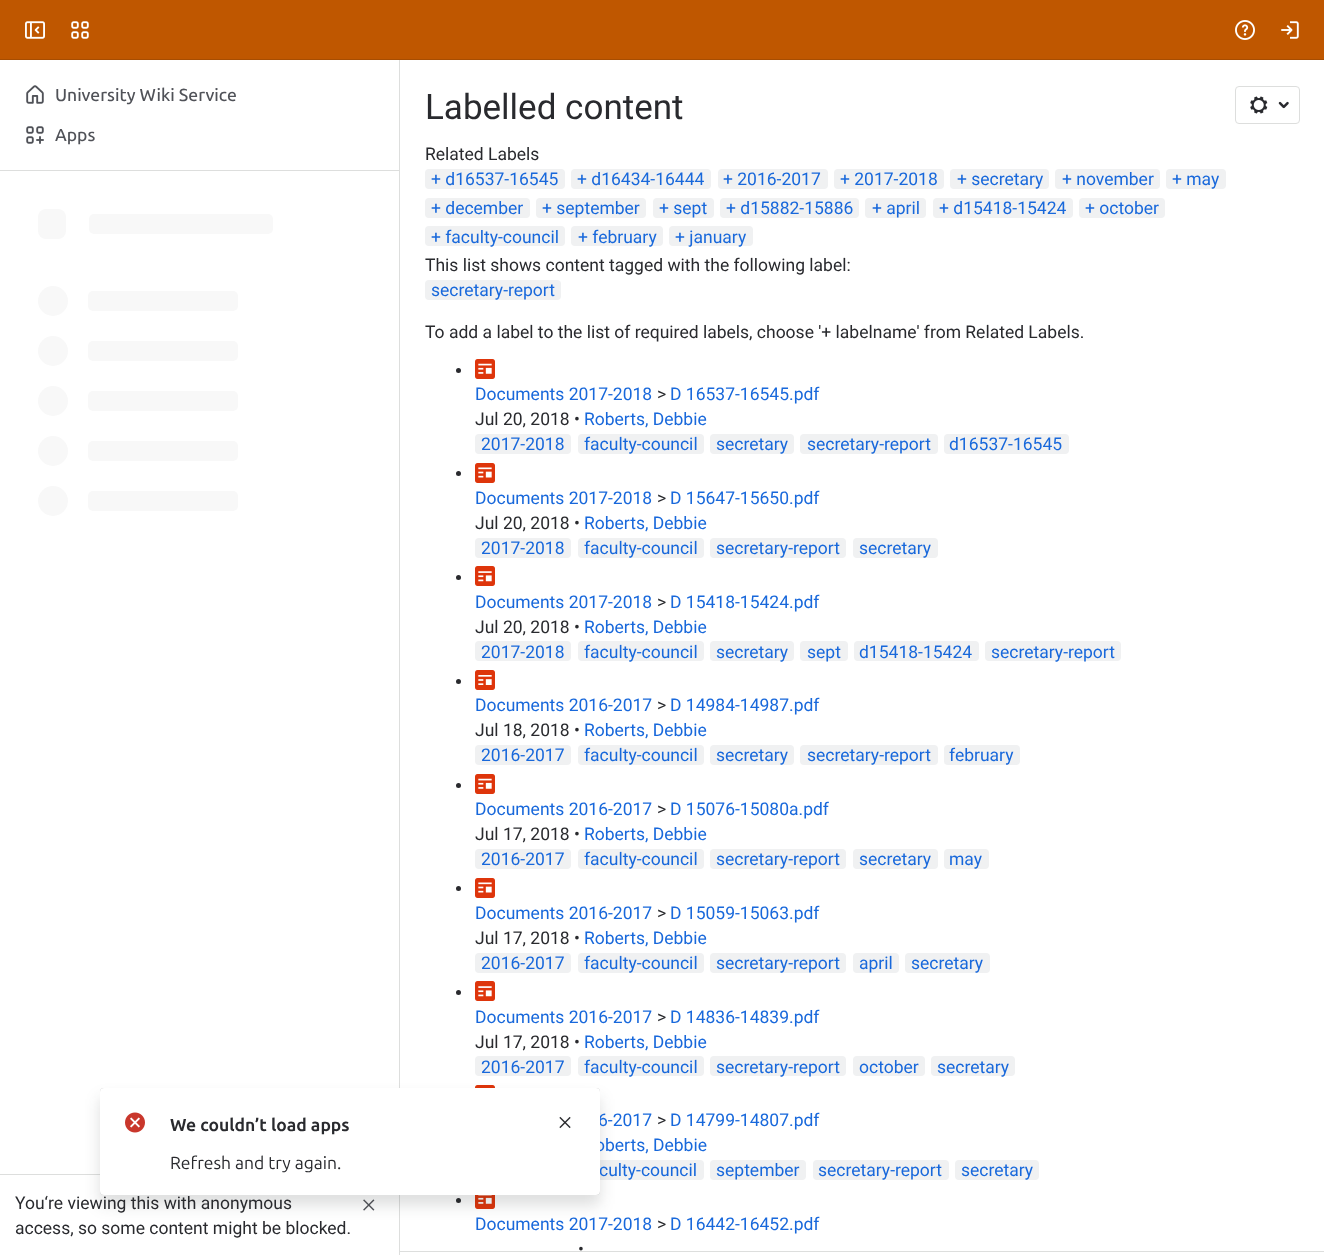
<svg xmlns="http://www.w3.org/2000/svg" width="1324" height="1255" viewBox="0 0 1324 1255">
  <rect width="100%" height="100%" fill="#fff"/>
  <path d="M0 0h1324v59H0z" fill="#bf5700"/>
  <path d="M0 59h1324v1H0z" fill="#a64d02"/>
  <image x="25" y="21" width="20" height="18" href="img/1.png"/>
  <image x="71" y="21" width="18" height="18" href="img/2.png"/>
  <image x="1235" y="20" width="20" height="20" href="img/3.png"/>
  <image x="1281" y="21" width="18" height="18" href="img/4.png"/>
  <path d="M399 60h1v1195H399z" fill="#dddedd"/>
  <image x="26" y="85" width="18" height="19" href="img/5.png"/>
  <image x="26" y="126" width="18" height="18" href="img/6.png"/>
  <path d="M0 170h399v1H0z" fill="#dddedd"/>
  <rect x="38" y="209" width="28" height="30" rx="8" fill="#f8f8f8"/>
  <rect x="89" y="214" width="184" height="20" rx="5" fill="#f8f8f8"/>
  <circle cx="53" cy="301" r="15" fill="#f8f8f8"/>
  <rect x="88" y="291" width="150" height="20" rx="5" fill="#f8f8f8"/>
  <circle cx="53" cy="351" r="15" fill="#f8f8f8"/>
  <rect x="88" y="341" width="150" height="20" rx="5" fill="#f8f8f8"/>
  <circle cx="53" cy="401" r="15" fill="#f8f8f8"/>
  <rect x="88" y="391" width="150" height="20" rx="5" fill="#f8f8f8"/>
  <circle cx="53" cy="451" r="15" fill="#f8f8f8"/>
  <rect x="88" y="441" width="150" height="20" rx="5" fill="#f8f8f8"/>
  <circle cx="53" cy="501" r="15" fill="#f8f8f8"/>
  <rect x="88" y="491" width="150" height="20" rx="5" fill="#f8f8f8"/>
  <path d="M0 1174h100v1H0z" fill="#dddedd"/>
  <image x="363" y="1199" width="12" height="12" href="img/7.png"/>
  <path d="M400 1251h924v1H400z" fill="#dddedd"/>
  <rect x="1235.5" y="86.5" width="64" height="37" rx="3.5" fill="none" stroke="#dddedd"/>
  <image x="1250" y="96" width="18" height="18" href="img/8.png"/>
  <image x="1278" y="101" width="11" height="8" href="img/9.png"/>
  <rect x="425" y="169" width="140" height="20" rx="4" fill="#f0f1f2"/>
  <rect x="571" y="169" width="140" height="20" rx="4" fill="#f0f1f2"/>
  <rect x="718" y="169" width="110" height="20" rx="4" fill="#f0f1f2"/>
  <rect x="834" y="169" width="110" height="20" rx="4" fill="#f0f1f2"/>
  <rect x="950" y="169" width="99" height="20" rx="4" fill="#f0f1f2"/>
  <rect x="1055" y="169" width="105" height="20" rx="4" fill="#f0f1f2"/>
  <rect x="1166" y="169" width="60" height="20" rx="4" fill="#f0f1f2"/>
  <rect x="425" y="198" width="105" height="20" rx="4" fill="#f0f1f2"/>
  <rect x="536" y="198" width="110" height="20" rx="4" fill="#f0f1f2"/>
  <rect x="653" y="198" width="61" height="20" rx="4" fill="#f0f1f2"/>
  <rect x="720" y="198" width="139" height="20" rx="4" fill="#f0f1f2"/>
  <rect x="865" y="198" width="61" height="20" rx="4" fill="#f0f1f2"/>
  <rect x="933" y="198" width="140" height="20" rx="4" fill="#f0f1f2"/>
  <rect x="1079" y="198" width="86" height="20" rx="4" fill="#f0f1f2"/>
  <rect x="425" y="226" width="140" height="20" rx="4" fill="#f0f1f2"/>
  <rect x="571" y="226" width="92" height="20" rx="4" fill="#f0f1f2"/>
  <rect x="669" y="226" width="84" height="20" rx="4" fill="#f0f1f2"/>
  <rect x="425" y="280" width="136" height="20" rx="4" fill="#f0f1f2"/>
  <circle cx="458.5" cy="370.5" r="2.5" fill="#292a2e"/>
  <image x="475" y="359" width="20" height="20" href="img/10.png"/>
  <rect x="475" y="434" width="96" height="20" rx="4" fill="#f0f1f2"/>
  <rect x="578" y="434" width="126" height="20" rx="4" fill="#f0f1f2"/>
  <rect x="710" y="434" width="84" height="20" rx="4" fill="#f0f1f2"/>
  <rect x="800" y="434" width="138" height="20" rx="4" fill="#f0f1f2"/>
  <rect x="944" y="434" width="125" height="20" rx="4" fill="#f0f1f2"/>
  <circle cx="458.5" cy="473.5" r="2.5" fill="#292a2e"/>
  <image x="475" y="463" width="20" height="20" href="img/11.png"/>
  <rect x="475" y="538" width="96" height="20" rx="4" fill="#f0f1f2"/>
  <rect x="578" y="538" width="126" height="20" rx="4" fill="#f0f1f2"/>
  <rect x="710" y="538" width="136" height="20" rx="4" fill="#f0f1f2"/>
  <rect x="853" y="538" width="85" height="20" rx="4" fill="#f0f1f2"/>
  <circle cx="458.5" cy="577.5" r="2.5" fill="#292a2e"/>
  <image x="475" y="566" width="20" height="20" href="img/12.png"/>
  <rect x="475" y="641" width="96" height="20" rx="4" fill="#f0f1f2"/>
  <rect x="578" y="641" width="126" height="20" rx="4" fill="#f0f1f2"/>
  <rect x="710" y="641" width="84" height="20" rx="4" fill="#f0f1f2"/>
  <rect x="800" y="641" width="48" height="20" rx="4" fill="#f0f1f2"/>
  <rect x="854" y="641" width="125" height="20" rx="4" fill="#f0f1f2"/>
  <rect x="985" y="641" width="136" height="20" rx="4" fill="#f0f1f2"/>
  <circle cx="458.5" cy="681.5" r="2.5" fill="#292a2e"/>
  <image x="475" y="670" width="20" height="20" href="img/13.png"/>
  <rect x="475" y="745" width="96" height="20" rx="4" fill="#f0f1f2"/>
  <rect x="578" y="745" width="126" height="20" rx="4" fill="#f0f1f2"/>
  <rect x="710" y="745" width="84" height="20" rx="4" fill="#f0f1f2"/>
  <rect x="800" y="745" width="138" height="20" rx="4" fill="#f0f1f2"/>
  <rect x="944" y="745" width="76" height="20" rx="4" fill="#f0f1f2"/>
  <circle cx="458.5" cy="785.5" r="2.5" fill="#292a2e"/>
  <image x="475" y="774" width="20" height="20" href="img/10.png"/>
  <rect x="475" y="849" width="96" height="20" rx="4" fill="#f0f1f2"/>
  <rect x="578" y="849" width="126" height="20" rx="4" fill="#f0f1f2"/>
  <rect x="710" y="849" width="136" height="20" rx="4" fill="#f0f1f2"/>
  <rect x="853" y="849" width="85" height="20" rx="4" fill="#f0f1f2"/>
  <rect x="944" y="849" width="45" height="20" rx="4" fill="#f0f1f2"/>
  <circle cx="458.5" cy="888.5" r="2.5" fill="#292a2e"/>
  <image x="475" y="878" width="20" height="20" href="img/11.png"/>
  <rect x="475" y="953" width="96" height="20" rx="4" fill="#f0f1f2"/>
  <rect x="578" y="953" width="126" height="20" rx="4" fill="#f0f1f2"/>
  <rect x="710" y="953" width="136" height="20" rx="4" fill="#f0f1f2"/>
  <rect x="853" y="953" width="46" height="20" rx="4" fill="#f0f1f2"/>
  <rect x="905" y="953" width="85" height="20" rx="4" fill="#f0f1f2"/>
  <circle cx="458.5" cy="992.5" r="2.5" fill="#292a2e"/>
  <image x="475" y="981" width="20" height="20" href="img/12.png"/>
  <rect x="475" y="1056" width="96" height="20" rx="4" fill="#f0f1f2"/>
  <rect x="578" y="1056" width="126" height="20" rx="4" fill="#f0f1f2"/>
  <rect x="710" y="1056" width="136" height="20" rx="4" fill="#f0f1f2"/>
  <rect x="853" y="1056" width="72" height="20" rx="4" fill="#f0f1f2"/>
  <rect x="931" y="1056" width="84" height="20" rx="4" fill="#f0f1f2"/>
  <image x="475" y="1085" width="20" height="3" href="img/14.png"/>
  <rect x="578" y="1160" width="126" height="20" rx="4" fill="#f0f1f2"/>
  <rect x="710" y="1160" width="96" height="20" rx="4" fill="#f0f1f2"/>
  <rect x="813" y="1160" width="136" height="20" rx="4" fill="#f0f1f2"/>
  <rect x="955" y="1160" width="84" height="20" rx="4" fill="#f0f1f2"/>
  <circle cx="458.5" cy="1200.5" r="2.5" fill="#292a2e"/>
  <image x="475" y="1195" width="20" height="14" href="img/15.png"/>
  <rect x="100" y="1088" width="500" height="107" rx="4" fill="#1e1f214f" filter="blur(0.5px)"/>
  <rect x="100" y="1098" width="500" height="107" rx="4" fill="#1e1f2126" filter="blur(7.5px)"/>
  <g font-family="Ubuntu" font-size="17.5" font-weight="500" fill="#505258">
    <text x="55" y="101">University Wiki Service</text>
    <text x="55" y="141">Apps</text>
  </g>
  <g font-family="Roboto" font-size="17.5" fill="#292a2e">
    <text x="15" y="1209">You‘re viewing this with anonymous</text>
    <text x="15" y="1234">access, so some content might be blocked.</text>
  </g>
  <text x="425" y="119" font-family="Roboto" font-size="35" fill="#292a2e">Labelled content</text>
  <text x="425" y="160" font-family="Roboto" font-size="17.5" fill="#292a2e">Related Labels</text>
  <g font-family="Roboto" font-size="17.5" fill="#1868db">
    <text x="431" y="185">+ d16537-16545</text>
    <text x="577" y="185">+ d16434-16444</text>
    <text x="723" y="185">+ 2016-2017</text>
    <text x="840" y="185">+ 2017-2018</text>
    <text x="957" y="185">+ secretary</text>
    <text x="1062" y="185">+ november</text>
    <text x="1172" y="185">+ may</text>
    <text x="431" y="214">+ december</text>
    <text x="542" y="214">+ september</text>
    <text x="659" y="214">+ sept</text>
    <text x="726" y="214">+ d15882-15886</text>
    <text x="872" y="214">+ april</text>
    <text x="939" y="214">+ d15418-15424</text>
    <text x="1085" y="214">+ october</text>
    <text x="431" y="243">+ faculty-council</text>
    <text x="578" y="243">+ february</text>
    <text x="675" y="243">+ january</text>
  </g>
  <text x="425" y="271" font-family="Roboto" font-size="17.5" fill="#292a2e">This list shows content tagged with the following label:</text>
  <text x="431" y="296" font-family="Roboto" font-size="17.5" fill="#1868db">secretary-report</text>
  <text x="425" y="338" font-family="Roboto" font-size="17.5" fill="#292a2e">To add a label to the list of required labels, choose '+ labelname' from Related Labels.</text>
  <text x="475" y="400" font-family="Roboto" font-size="17.5" fill="#1868db">Documents 2017-2018</text>
  <text x="657" y="400" font-family="Roboto" font-size="17.5" fill="#292a2e">&gt;</text>
  <text x="670" y="400" font-family="Roboto" font-size="17.5" fill="#1868db">D 16537-16545.pdf</text>
  <text x="475" y="425" font-family="Roboto" font-size="17.5" fill="#292a2e">Jul 20, 2018 •</text>
  <g font-family="Roboto" font-size="17.5" fill="#1868db">
    <text x="584" y="425">Roberts, Debbie</text>
    <text x="481" y="450">2017-2018</text>
    <text x="584" y="450">faculty-council</text>
    <text x="716" y="450">secretary</text>
    <text x="807" y="450">secretary-report</text>
    <text x="949" y="450">d16537-16545</text>
    <text x="475" y="504">Documents 2017-2018</text>
  </g>
  <text x="657" y="504" font-family="Roboto" font-size="17.5" fill="#292a2e">&gt;</text>
  <text x="670" y="504" font-family="Roboto" font-size="17.5" fill="#1868db">D 15647-15650.pdf</text>
  <text x="475" y="529" font-family="Roboto" font-size="17.5" fill="#292a2e">Jul 20, 2018 •</text>
  <g font-family="Roboto" font-size="17.5" fill="#1868db">
    <text x="584" y="529">Roberts, Debbie</text>
    <text x="481" y="554">2017-2018</text>
    <text x="584" y="554">faculty-council</text>
    <text x="716" y="554">secretary-report</text>
    <text x="859" y="554">secretary</text>
    <text x="475" y="608">Documents 2017-2018</text>
  </g>
  <text x="657" y="608" font-family="Roboto" font-size="17.5" fill="#292a2e">&gt;</text>
  <text x="670" y="608" font-family="Roboto" font-size="17.5" fill="#1868db">D 15418-15424.pdf</text>
  <text x="475" y="633" font-family="Roboto" font-size="17.5" fill="#292a2e">Jul 20, 2018 •</text>
  <g font-family="Roboto" font-size="17.5" fill="#1868db">
    <text x="584" y="633">Roberts, Debbie</text>
    <text x="481" y="658">2017-2018</text>
    <text x="584" y="658">faculty-council</text>
    <text x="716" y="658">secretary</text>
    <text x="807" y="658">sept</text>
    <text x="859" y="658">d15418-15424</text>
    <text x="991" y="658">secretary-report</text>
    <text x="475" y="711">Documents 2016-2017</text>
  </g>
  <text x="657" y="711" font-family="Roboto" font-size="17.5" fill="#292a2e">&gt;</text>
  <text x="670" y="711" font-family="Roboto" font-size="17.5" fill="#1868db">D 14984-14987.pdf</text>
  <text x="475" y="736" font-family="Roboto" font-size="17.5" fill="#292a2e">Jul 18, 2018 •</text>
  <g font-family="Roboto" font-size="17.5" fill="#1868db">
    <text x="584" y="736">Roberts, Debbie</text>
    <text x="481" y="761">2016-2017</text>
    <text x="584" y="761">faculty-council</text>
    <text x="716" y="761">secretary</text>
    <text x="807" y="761">secretary-report</text>
    <text x="949" y="761">february</text>
    <text x="475" y="815">Documents 2016-2017</text>
  </g>
  <text x="657" y="815" font-family="Roboto" font-size="17.5" fill="#292a2e">&gt;</text>
  <text x="670" y="815" font-family="Roboto" font-size="17.5" fill="#1868db">D 15076-15080a.pdf</text>
  <text x="475" y="840" font-family="Roboto" font-size="17.5" fill="#292a2e">Jul 17, 2018 •</text>
  <g font-family="Roboto" font-size="17.5" fill="#1868db">
    <text x="584" y="840">Roberts, Debbie</text>
    <text x="481" y="865">2016-2017</text>
    <text x="584" y="865">faculty-council</text>
    <text x="716" y="865">secretary-report</text>
    <text x="859" y="865">secretary</text>
    <text x="949" y="865">may</text>
    <text x="475" y="919">Documents 2016-2017</text>
  </g>
  <text x="657" y="919" font-family="Roboto" font-size="17.5" fill="#292a2e">&gt;</text>
  <text x="670" y="919" font-family="Roboto" font-size="17.5" fill="#1868db">D 15059-15063.pdf</text>
  <text x="475" y="944" font-family="Roboto" font-size="17.5" fill="#292a2e">Jul 17, 2018 •</text>
  <g font-family="Roboto" font-size="17.5" fill="#1868db">
    <text x="584" y="944">Roberts, Debbie</text>
    <text x="481" y="969">2016-2017</text>
    <text x="584" y="969">faculty-council</text>
    <text x="716" y="969">secretary-report</text>
    <text x="859" y="969">april</text>
    <text x="911" y="969">secretary</text>
    <text x="475" y="1023">Documents 2016-2017</text>
  </g>
  <text x="657" y="1023" font-family="Roboto" font-size="17.5" fill="#292a2e">&gt;</text>
  <text x="670" y="1023" font-family="Roboto" font-size="17.5" fill="#1868db">D 14836-14839.pdf</text>
  <text x="475" y="1048" font-family="Roboto" font-size="17.5" fill="#292a2e">Jul 17, 2018 •</text>
  <g font-family="Roboto" font-size="17.5" fill="#1868db">
    <text x="584" y="1048">Roberts, Debbie</text>
    <text x="481" y="1073">2016-2017</text>
    <text x="584" y="1073">faculty-council</text>
    <text x="716" y="1073">secretary-report</text>
    <text x="859" y="1073">october</text>
    <text x="937" y="1073">secretary</text>
    <text x="598" y="1126">6-2017</text>
  </g>
  <text x="657" y="1126" font-family="Roboto" font-size="17.5" fill="#292a2e">&gt;</text>
  <g font-family="Roboto" font-size="17.5" fill="#1868db">
    <text x="670" y="1126">D 14799-14807.pdf</text>
    <text x="595" y="1151">oberts, Debbie</text>
    <text x="599" y="1176">culty-council</text>
    <text x="716" y="1176">september</text>
    <text x="818" y="1176">secretary-report</text>
    <text x="961" y="1176">secretary</text>
    <text x="475" y="1230">Documents 2017-2018</text>
  </g>
  <text x="657" y="1230" font-family="Roboto" font-size="17.5" fill="#292a2e">&gt;</text>
  <text x="670" y="1230" font-family="Roboto" font-size="17.5" fill="#1868db">D 16442-16452.pdf</text>
  <text x="578" y="1255" font-family="Roboto" font-size="17.5" fill="#292a2e">•</text>
  <rect x="100" y="1088" width="500" height="107" rx="4" fill="#fff"/>
  <image x="125" y="1112" width="20" height="21" href="img/16.png"/>
  <text x="170" y="1131" font-family="Ubuntu" font-size="17.5" font-weight="bold" fill="#292a2e">We couldn’t load apps</text>
  <image x="559" y="1116" width="12" height="13" href="img/17.png"/>
  <text x="170" y="1169" font-family="Ubuntu" font-size="17.5" fill="#292a2e">Refresh and try again.</text>
</svg>
